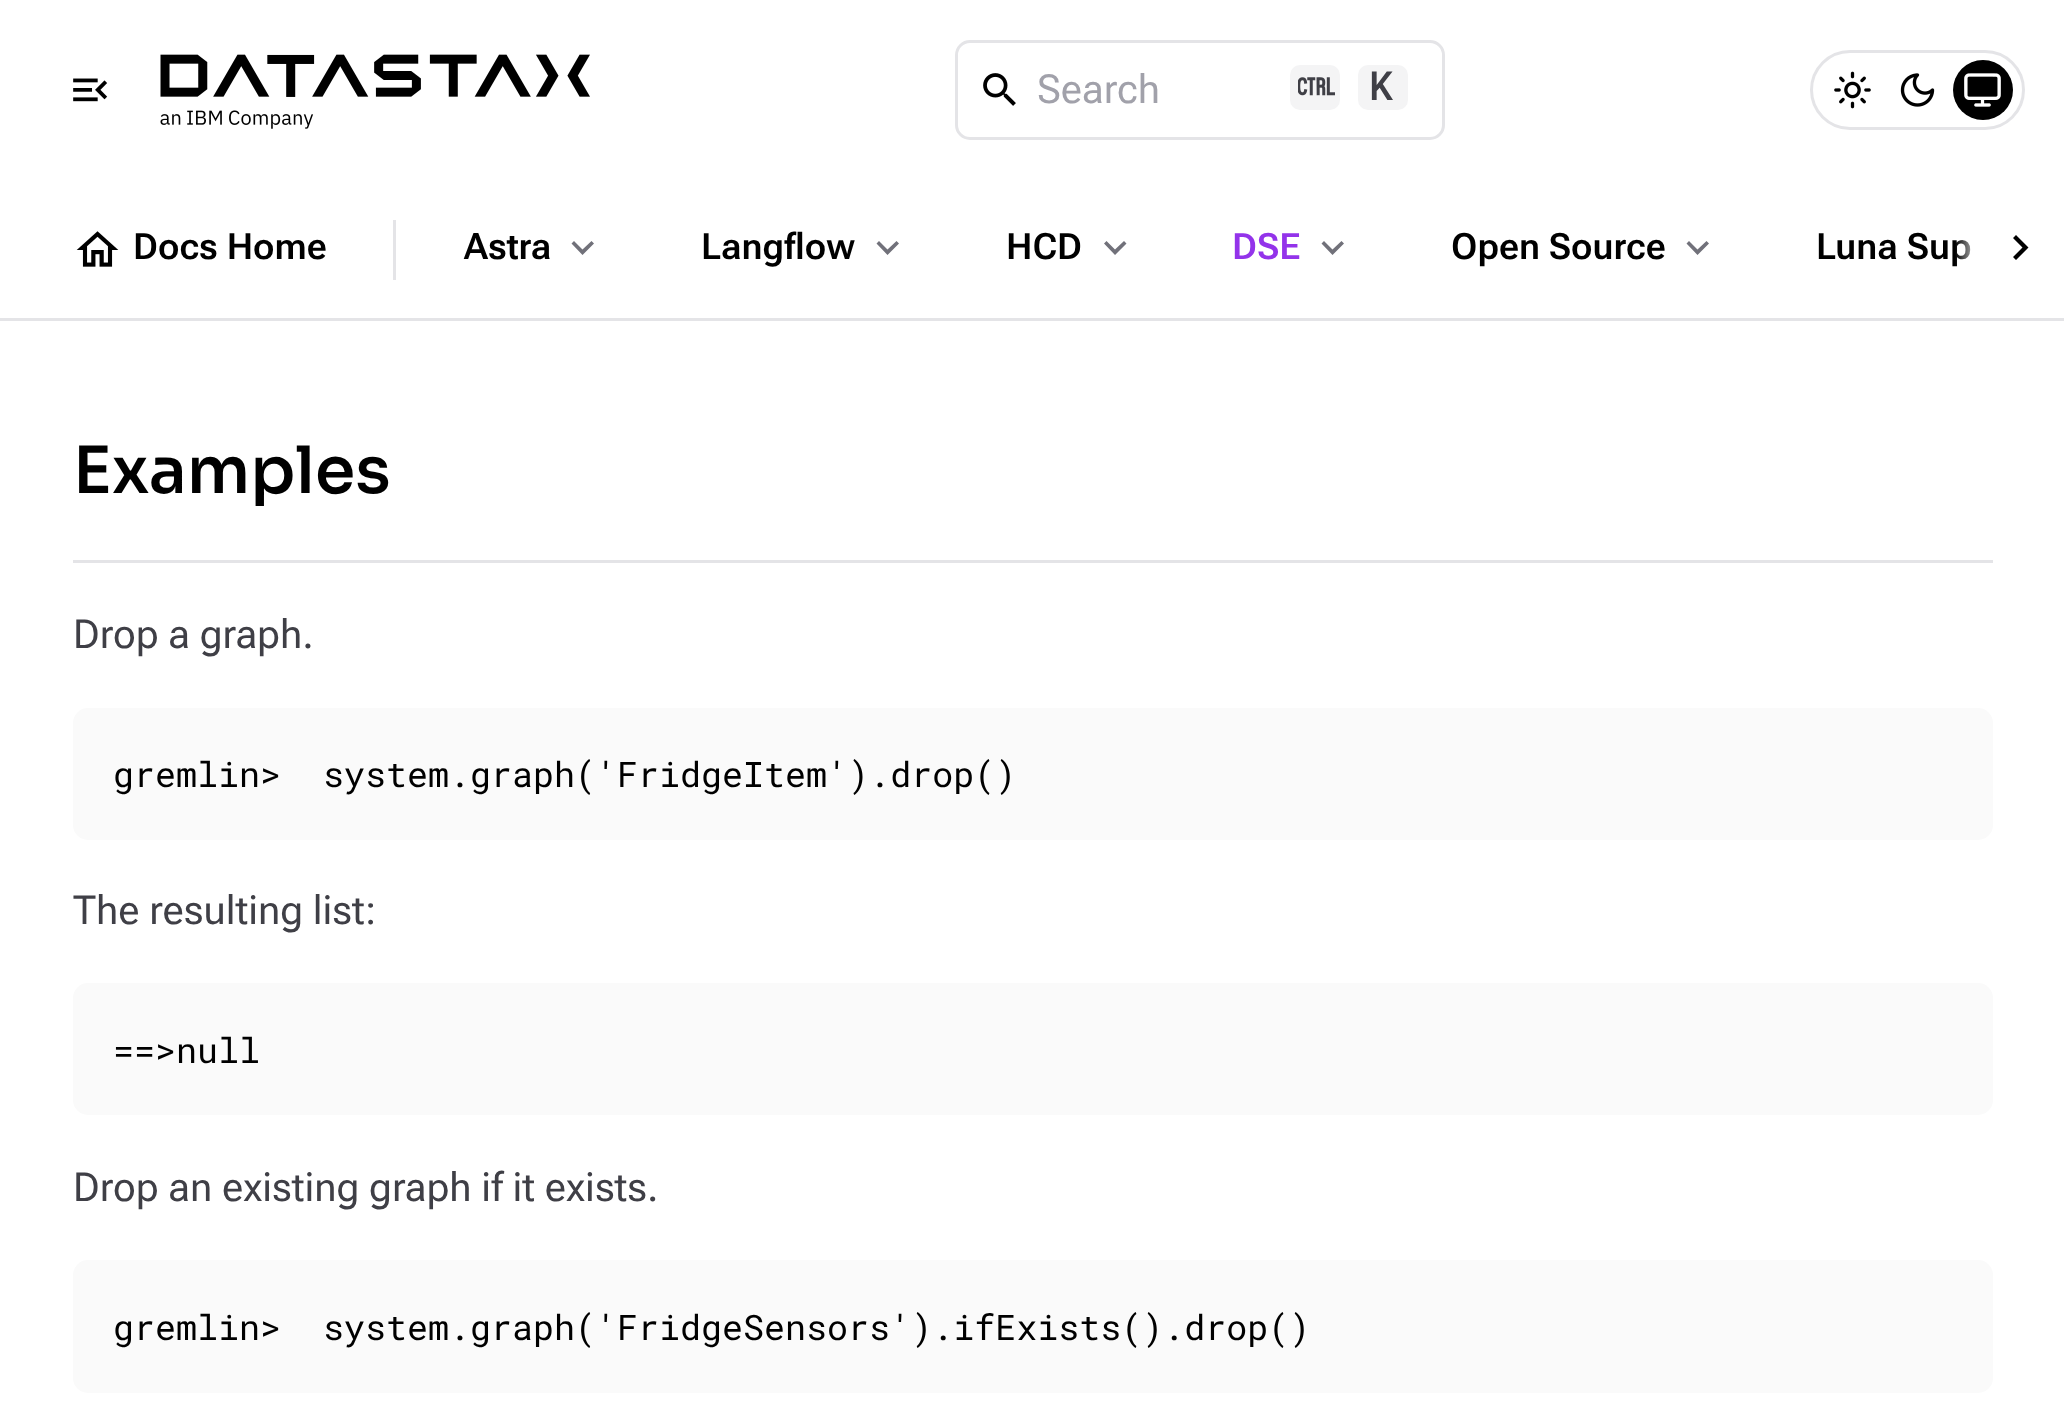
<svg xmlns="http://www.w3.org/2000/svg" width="2064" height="1405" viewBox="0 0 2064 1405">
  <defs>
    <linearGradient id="g1" gradientUnits="userSpaceOnUse" x1="1955" y1="250" x2="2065" y2="250"><stop offset="0" stop-color="#fff" stop-opacity="0"/><stop offset="0.25" stop-color="#fff"/><stop offset="0.5" stop-color="#fff"/></linearGradient>
  </defs>
  <rect width="100%" height="100%" fill="#fff"/>
  <path d="M0 318h2064v3H0z" fill="#e4e4e7"/>
  <image x="73" y="78" width="35" height="24" href="img/1.png"/>
  <image x="160" y="54" width="430" height="75" href="img/2.png"/>
  <rect x="956.5" y="41.5" width="487" height="97" rx="13.5" fill="none" stroke="#e4e4e7" stroke-width="3"/>
  <image x="983" y="73" width="33" height="33" href="img/3.png"/>
  <rect x="1290" y="65" width="50" height="45" rx="10" fill="#f4f4f5"/>
  <image x="1298" y="77" width="37" height="19" href="img/4.png"/>
  <rect x="1358" y="65" width="50" height="45" rx="10" fill="#f4f4f5"/>
  <rect x="1811.5" y="51.5" width="212" height="77" rx="38.5" fill="none" stroke="#e4e4e7" stroke-width="3"/>
  <image x="1834" y="71" width="37" height="38" href="img/5.png"/>
  <image x="1900" y="73" width="35" height="34" href="img/6.png"/>
  <circle cx="1983" cy="90" r="30" fill="#000"/>
  <image x="1964" y="73" width="37" height="34" href="img/7.png"/>
  <image x="76" y="231" width="43" height="36" href="img/8.png"/>
  <path d="M393 220h3v60H393z" fill="#e4e4e7"/>
  <path d="M591.5 241L582.5 249.5L574 241L571.5 243.5L582.5 255L594 243.5Z" fill="#71717a"/>
  <path d="M896.5 241L887.5 249.5L879 241L876.5 243.5L887.5 255L899 243.5Z" fill="#71717a"/>
  <path d="M1124 241L1115 249.5L1106.5 241L1104 243.5L1115 255L1126.5 243.5Z" fill="#71717a"/>
  <path d="M1341.5 241L1332.5 249.5L1324 241L1321.5 243.5L1332.5 255L1344 243.5Z" fill="#71717a"/>
  <path d="M1706.5 241L1697.5 249.5L1689 241L1686.5 243.5L1697.5 255L1709 243.5Z" fill="#71717a"/>
  <path d="M73 560h1920v3H73z" fill="#e4e4e7"/>
  <rect x="73" y="708" width="1920" height="132" rx="15" fill="#fafafa"/>
  <rect x="73" y="983" width="1920" height="132" rx="15" fill="#fafafa"/>
  <rect x="73" y="1260" width="1920" height="133" rx="15" fill="#fafafa"/>
  <text x="1037" y="103" font-family="Roboto Flex" font-size="40" fill="#a1a1aa">Search</text>
  <text x="1369" y="100" font-family="Roboto Mono" font-size="40" font-weight="500" fill="#3f3f46">K</text>
  <g font-family="Roboto Flex" font-size="36.25" font-weight="600" fill="#000">
    <text x="133" y="259">Docs Home</text>
    <text x="464" y="259">Astra</text>
    <text x="701" y="259">Langflow</text>
    <text x="1006" y="259">HCD</text>
  </g>
  <text x="1232" y="259" font-family="Roboto Flex" font-size="36.25" font-weight="600" fill="#9333ea">DSE</text>
  <g font-family="Roboto Flex" font-size="36.25" font-weight="600" fill="#000">
    <text x="1451" y="259">Open Source</text>
    <text x="1816" y="259">Luna Sup</text>
  </g>
  <path d="M1955 190H2050C2058.5 190 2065 196.5 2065 205V310H1955Z" fill="url(#g1)"/>
  <path d="M2016 235L2013 238L2022.5 247.5L2013 257L2016 260L2028.5 247.5Z" fill="#000"/>
  <text x="73" y="493" font-family="Sora" font-size="65" font-weight="500" fill="#000">Examples</text>
  <text x="73" y="648" font-family="Roboto Flex" font-size="40" fill="#3f3f46">Drop a graph.</text>
  <text x="113" y="787" font-family="Roboto Mono" font-size="35" fill="#000" xml:space="preserve">gremlin&gt;  system.graph('FridgeItem').drop()</text>
  <text x="73" y="924" font-family="Roboto Flex" font-size="40" fill="#3f3f46">The resulting list:</text>
  <text x="113" y="1063" font-family="Roboto Mono" font-size="35" fill="#000">==&gt;null</text>
  <text x="73" y="1201" font-family="Roboto Flex" font-size="40" fill="#3f3f46">Drop an existing graph if it exists.</text>
  <text x="113" y="1340" font-family="Roboto Mono" font-size="35" fill="#000" xml:space="preserve">gremlin&gt;  system.graph('FridgeSensors').ifExists().drop()</text>
</svg>
